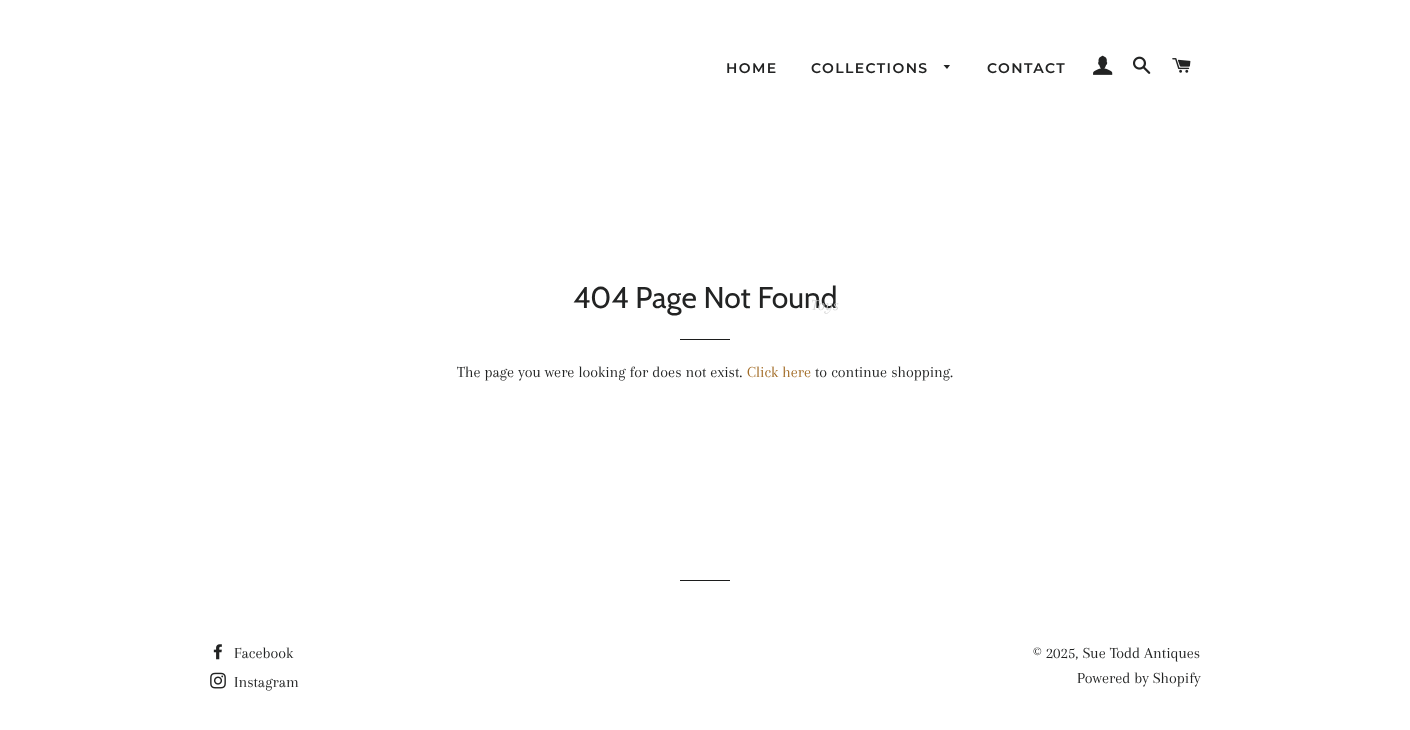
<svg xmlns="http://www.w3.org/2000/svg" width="1410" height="730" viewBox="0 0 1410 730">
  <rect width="100%" height="100%" fill="#fff"/>
  <path d="M943.5 65L947 69L950 65Z" fill="#222323"/>
  <image x="1093" y="55" width="20" height="20" href="img/1.png"/>
  <image x="1133" y="56" width="18" height="18" href="img/2.png"/>
  <image x="1172" y="58" width="19" height="15" href="img/3.png"/>
  <path d="M680 339h50v1H680z" fill="#1c1d1d"/>
  <path d="M680 580h50v1H680z" fill="#1c1d1d"/>
  <image x="213" y="644" width="9" height="16" href="img/4.png"/>
  <image x="210" y="672" width="16" height="17" href="img/5.png"/>
  <g font-family="Montserrat" font-size="14" font-weight="600" letter-spacing="1.4" fill="#222323">
    <text x="726" y="73">HOME</text>
    <text x="811" y="73">COLLECTIONS</text>
    <text x="987" y="73">CONTACT</text>
  </g>
  <text x="573" y="308" font-family="Cabin" font-size="30" fill="#222323">404 Page Not Found</text>
  <text x="811" y="310" font-family="Arapey" font-size="16" font-style="italic" fill="#d1d1d1">Toys</text>
  <text x="457" y="377" font-family="Arapey" font-size="16" fill="#222323">The page you were looking for does not exist.</text>
  <text x="747" y="377" font-family="Arapey" font-size="16" fill="#a26b25">Click here</text>
  <g font-family="Arapey" font-size="16" fill="#222323">
    <text x="815" y="377">to continue shopping.</text>
    <text x="234" y="658">Facebook</text>
    <text x="234" y="687">Instagram</text>
    <text x="1033" y="658">© 2025, Sue Todd Antiques</text>
    <text x="1077" y="683">Powered by Shopify</text>
  </g>
</svg>
